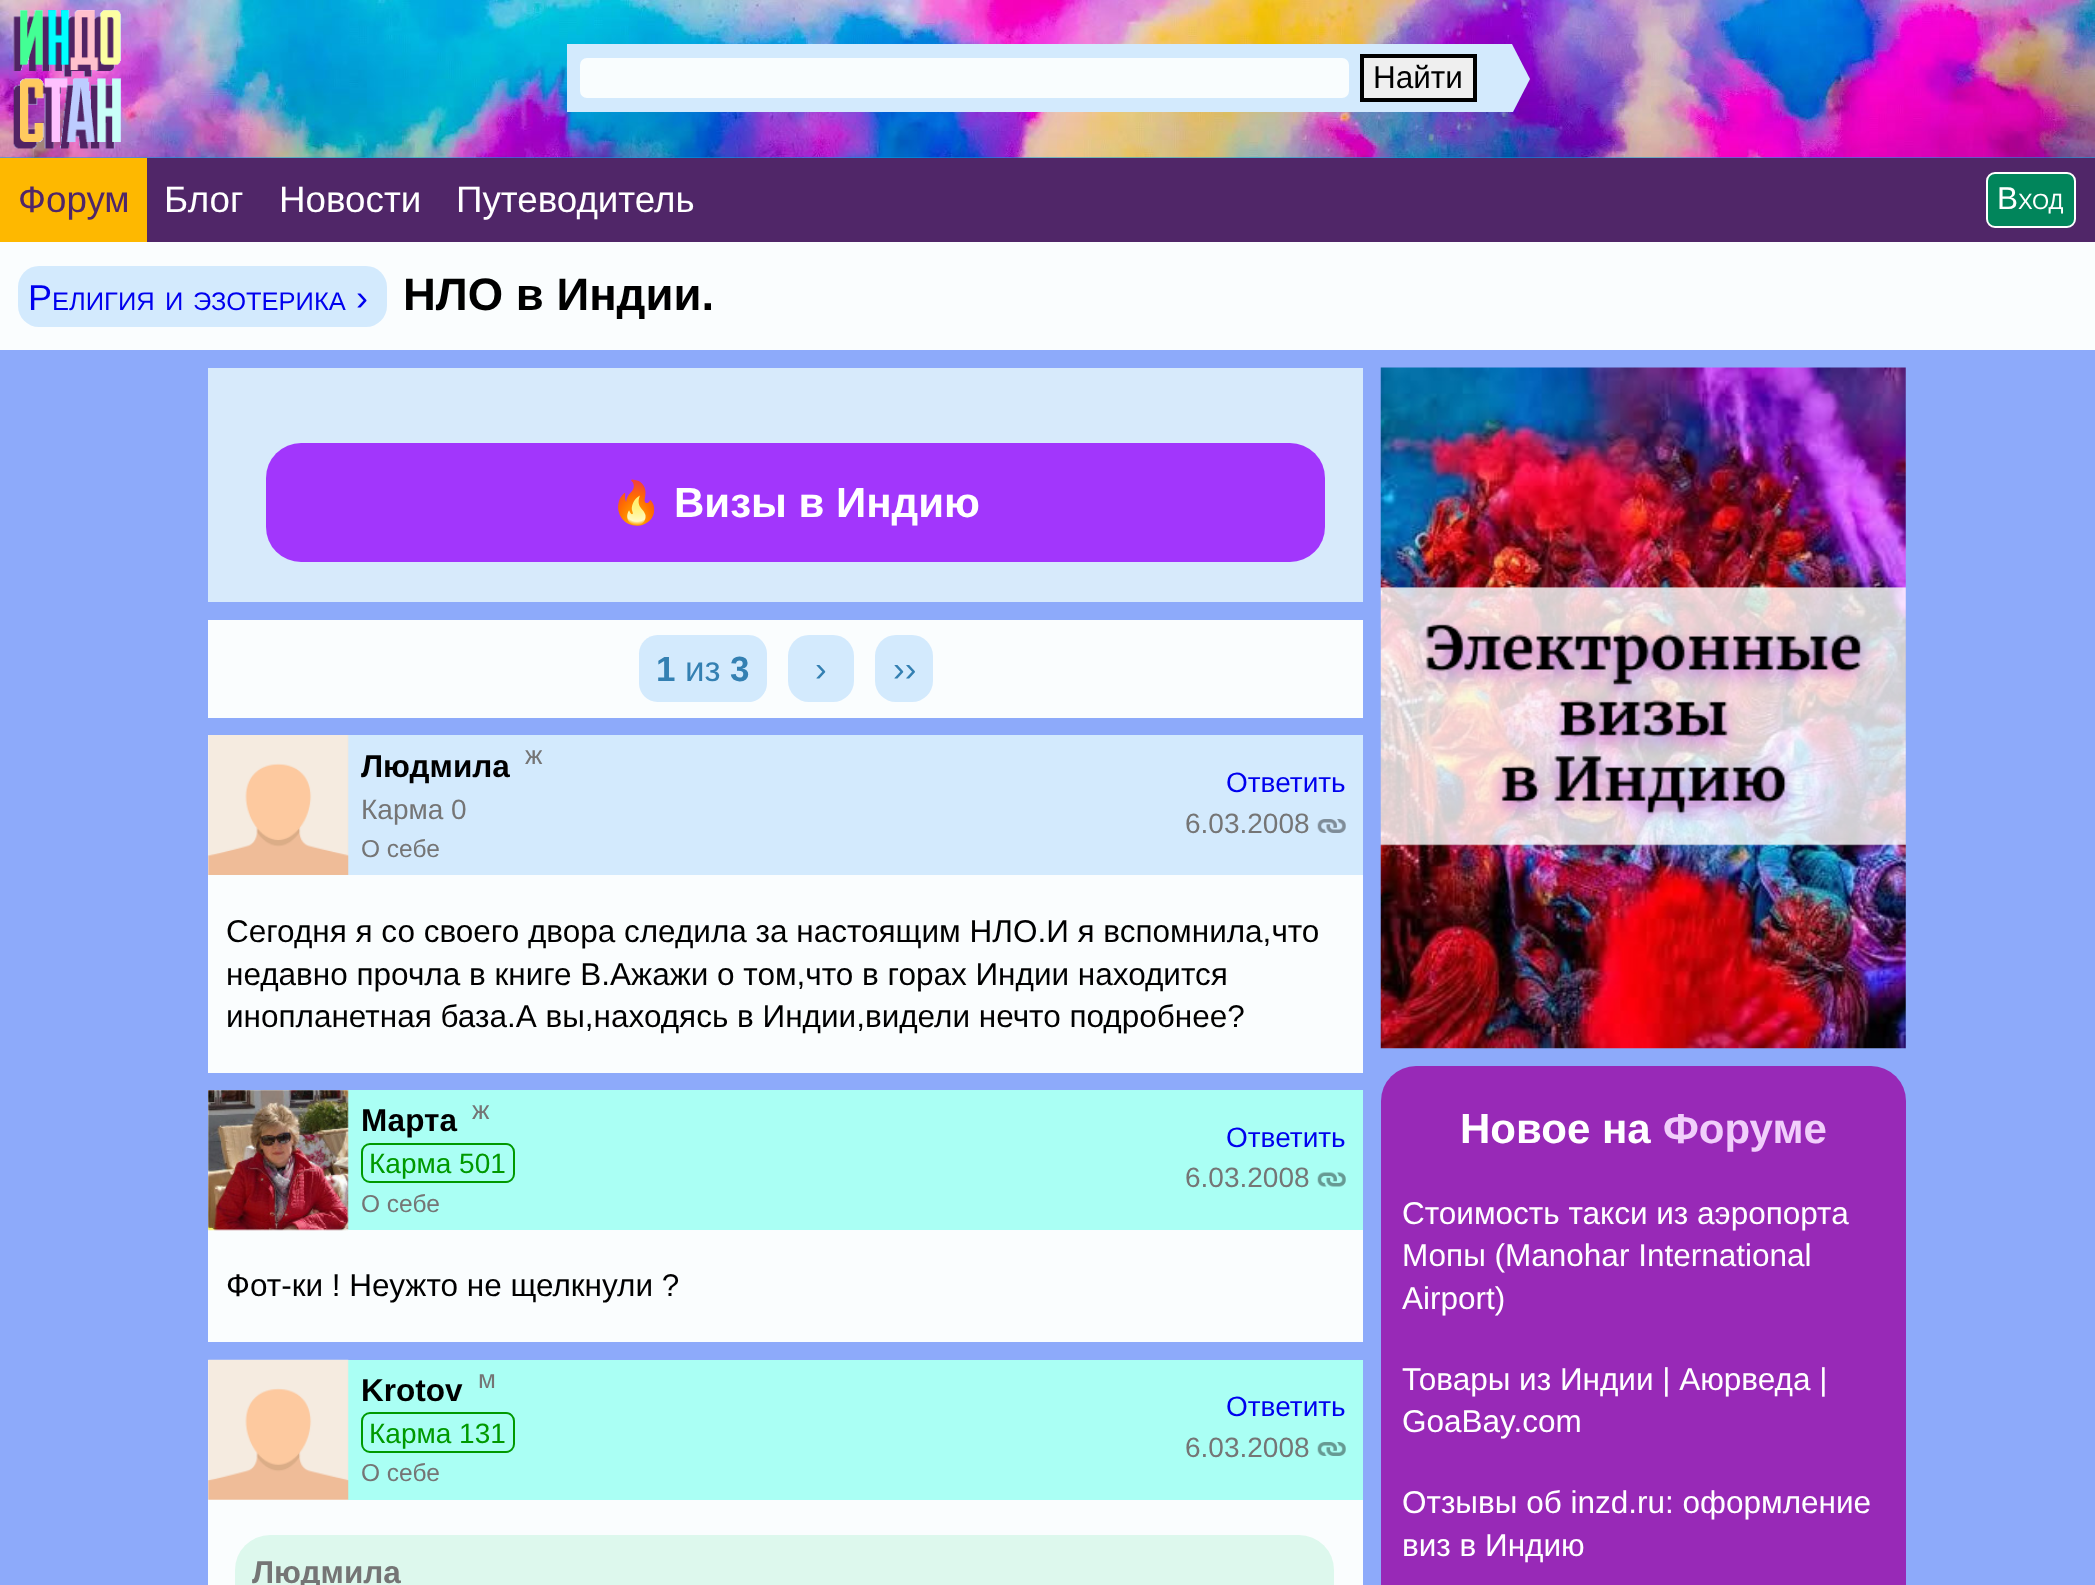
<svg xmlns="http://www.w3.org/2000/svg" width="2095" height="1585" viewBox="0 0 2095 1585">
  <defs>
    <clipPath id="clip1"><path d="M1477 44h53v68H1477z"/></clipPath>
  </defs>
  <rect width="100%" height="100%" fill="#8daafa"/>
  <path d="M0 157h2095v1H0z" fill="#00a4e4"/>
  <image x="0" y="0" width="2095" height="158" href="img/1.png"/>
  <image x="13" y="10" width="108" height="139" href="img/2.png"/>
  <path d="M567 44h910v68H567z" fill="#d3eafd"/>
  <rect x="579" y="57" width="771" height="42" rx="8" fill="#f9fdfe" stroke="#d3eafd" stroke-width="2"/>
  <path d="M1362 56h113v44H1362z" fill="#efefef" stroke="#000" stroke-width="4"/>
  <g clip-path="url(#clip1)">
    <path d="M1477 182V-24L1530 79Z" fill="#d3eafd"/>
  </g>
  <path d="M147 158h1948v84H147z" fill="#502668"/>
  <path d="M0 158h147v84H0z" fill="#feb800"/>
  <rect x="1987" y="173" width="88" height="54" rx="8" fill="#01855b" stroke="#fff" stroke-width="2"/>
  <path d="M0 242h2095v108H0z" fill="#fafdfe"/>
  <rect x="18" y="266" width="369" height="61" rx="21" fill="#d3eafd"/>
  <path d="M208 368h1155v234H208z" fill="#d7eafb"/>
  <rect x="266" y="443" width="1059" height="119" rx="35" fill="#a236fc"/>
  <path d="M208 620h1155v98H208z" fill="#fafdfe"/>
  <path d="M657.5 635H676V702H657.5C647.5 702 639 693.5 639 683.5V653.5C639 643.5 647.5 635 657.5 635Z" fill="#d3eafd"/>
  <path d="M676 635h54v67H676z" fill="#d3eafd"/>
  <path d="M730 635H748.5C758.5 635 767 643.5 767 653.5V683.5C767 693.5 758.5 702 748.5 702H730Z" fill="#d3eafd"/>
  <rect x="788" y="635" width="66" height="67" rx="21" fill="#d3eafd"/>
  <rect x="875" y="635" width="58" height="67" rx="21" fill="#d3eafd"/>
  <path d="M208 735h1155v338H208z" fill="#fafdfe"/>
  <path d="M348 735h1015v140H348z" fill="#d3eafd"/>
  <image x="208" y="735" width="141" height="140" href="img/3.png"/>
  <image x="1317" y="819" width="29" height="14" href="img/4.png"/>
  <path d="M208 1230h1155v112H208z" fill="#fafdfe"/>
  <path d="M208 1090h140v140H208z" fill="#fff"/>
  <path d="M348 1090h1015v140H348z" fill="#aafff4"/>
  <image x="208" y="1090" width="141" height="141" href="img/5.png"/>
  <rect x="362" y="1144" width="152" height="38" rx="8" fill="none" stroke="#090" stroke-width="2"/>
  <image x="1317" y="1172" width="29" height="15" href="img/6.png"/>
  <path d="M208 1500h1155v85H208z" fill="#fafdfe"/>
  <path d="M208 1360h140v140H208z" fill="#fff"/>
  <path d="M348 1360h1015v140H348z" fill="#aafff4"/>
  <image x="208" y="1359" width="141" height="141" href="img/7.png"/>
  <rect x="362" y="1413" width="152" height="39" rx="8" fill="none" stroke="#090" stroke-width="2"/>
  <image x="1317" y="1442" width="29" height="14" href="img/8.png"/>
  <rect x="235" y="1535" width="1099" height="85" rx="35" fill="#ddf8ed"/>
  <image x="1380" y="367" width="526" height="682" href="img/9.png"/>
  <rect x="1381" y="1066" width="525" height="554" rx="35" fill="#9829b7"/>
  <text x="1373" y="88" font-family="Liberation Sans" font-size="31.5" fill="#000">Найти</text>
  <text x="18" y="212" font-family="Liberation Sans" font-size="36.75" fill="#502668">Форум</text>
  <g font-family="Liberation Sans" font-size="36.75" fill="#fff">
    <text x="164" y="212">Блог</text>
    <text x="279" y="212">Новости</text>
    <text x="456" y="212">Путеводитель</text>
  </g>
  <text x="1997" y="209" font-family="Liberation Sans" font-size="31.5" fill="#fff">В</text>
  <text x="2018" y="209" font-family="Liberation Sans" font-size="22" fill="#fff">ХОД</text>
  <text x="28" y="310" font-family="Liberation Sans" font-size="36" fill="#00e">Р</text>
  <g font-family="Liberation Sans" font-size="25.5" fill="#00e">
    <text x="52" y="310">ЕЛИГИЯ</text>
    <text x="165" y="310">И</text>
    <text x="193" y="310">ЭЗОТЕРИКА</text>
  </g>
  <text x="356" y="310" font-family="Liberation Sans" font-size="36" fill="#00e">›</text>
  <text x="403" y="310" font-family="Liberation Sans" font-size="45.5" font-weight="bold" fill="#000">НЛО в Индии.</text>
  <text x="610" y="517" font-family="Noto Color Emoji" font-size="42" font-weight="bold" fill="#fff">🔥</text>
  <text x="674" y="517" font-family="Liberation Sans" font-size="42" font-weight="bold" fill="#fff">Визы в Индию</text>
  <text x="656" y="681" font-family="Liberation Sans" font-size="35" font-weight="bold" fill="#3480b2">1</text>
  <text x="685" y="681" font-family="Liberation Sans" font-size="35" fill="#3480b2">из</text>
  <text x="730" y="681" font-family="Liberation Sans" font-size="35" font-weight="bold" fill="#3480b2">3</text>
  <g font-family="Liberation Sans" font-size="35" fill="#3480b2">
    <text x="815" y="681">›</text>
    <text x="893" y="681">››</text>
  </g>
  <text x="361" y="777" font-family="Liberation Sans" font-size="31.5" font-weight="bold" fill="#000">Людмила</text>
  <text x="525" y="764" font-family="Liberation Sans" font-size="26" fill="#757575">ж</text>
  <text x="361" y="819" font-family="Liberation Sans" font-size="28" fill="#757575">Карма 0</text>
  <text x="361" y="857" font-family="Liberation Sans" font-size="24.5" fill="#757575">О себе</text>
  <text x="1226" y="792" font-family="Liberation Sans" font-size="28" fill="#00e">Ответить</text>
  <text x="1185" y="833" font-family="Liberation Sans" font-size="28" fill="#757575">6.03.2008</text>
  <g font-family="Liberation Sans" font-size="31.5" fill="#000">
    <text x="226" y="942">Сегодня я со своего двора следила за настоящим НЛО.И я вспомнила,что</text>
    <text x="226" y="985">недавно прочла в книге В.Ажажи о том,что в горах Индии находится</text>
    <text x="226" y="1027">инопланетная база.А вы,находясь в Индии,видели нечто подробнее?</text>
  </g>
  <text x="361" y="1131" font-family="Liberation Sans" font-size="31.5" font-weight="bold" fill="#000">Марта</text>
  <text x="472" y="1119" font-family="Liberation Sans" font-size="26" fill="#757575">ж</text>
  <text x="369" y="1173" font-family="Liberation Sans" font-size="28" fill="#090">Карма 501</text>
  <text x="361" y="1212" font-family="Liberation Sans" font-size="24.5" fill="#757575">О себе</text>
  <text x="1226" y="1147" font-family="Liberation Sans" font-size="28" fill="#00e">Ответить</text>
  <text x="1185" y="1187" font-family="Liberation Sans" font-size="28" fill="#757575">6.03.2008</text>
  <text x="226" y="1296" font-family="Liberation Sans" font-size="31.5" fill="#000">Фот-ки ! Неужто не щелкнули ?</text>
  <text x="361" y="1401" font-family="Liberation Sans" font-size="31.5" font-weight="bold" fill="#000">Krotov</text>
  <text x="478" y="1388" font-family="Liberation Sans" font-size="26" fill="#757575">м</text>
  <text x="369" y="1443" font-family="Liberation Sans" font-size="28" fill="#090">Карма 131</text>
  <text x="361" y="1481" font-family="Liberation Sans" font-size="24.5" fill="#757575">О себе</text>
  <text x="1226" y="1416" font-family="Liberation Sans" font-size="28" fill="#00e">Ответить</text>
  <text x="1185" y="1457" font-family="Liberation Sans" font-size="28" fill="#757575">6.03.2008</text>
  <text x="252" y="1583" font-family="Liberation Sans" font-size="31.5" font-weight="bold" fill="#757575">Людмила</text>
  <text x="1460" y="1143" font-family="Liberation Sans" font-size="42" font-weight="bold" fill="#fff">Новое на</text>
  <text x="1663" y="1143" font-family="Liberation Sans" font-size="42" font-weight="bold" fill="#f1cefb">Форуме</text>
  <g font-family="Liberation Sans" font-size="31.5" fill="#fff">
    <text x="1402" y="1224">Стоимость такси из аэропорта</text>
    <text x="1402" y="1266">Мопы (Manohar International</text>
    <text x="1402" y="1309">Airport)</text>
    <text x="1402" y="1390">Товары из Индии | Аюрведа |</text>
    <text x="1402" y="1432">GoaBay.com</text>
    <text x="1402" y="1513">Отзывы об inzd.ru: оформление</text>
    <text x="1402" y="1556">виз в Индию</text>
  </g>
</svg>
